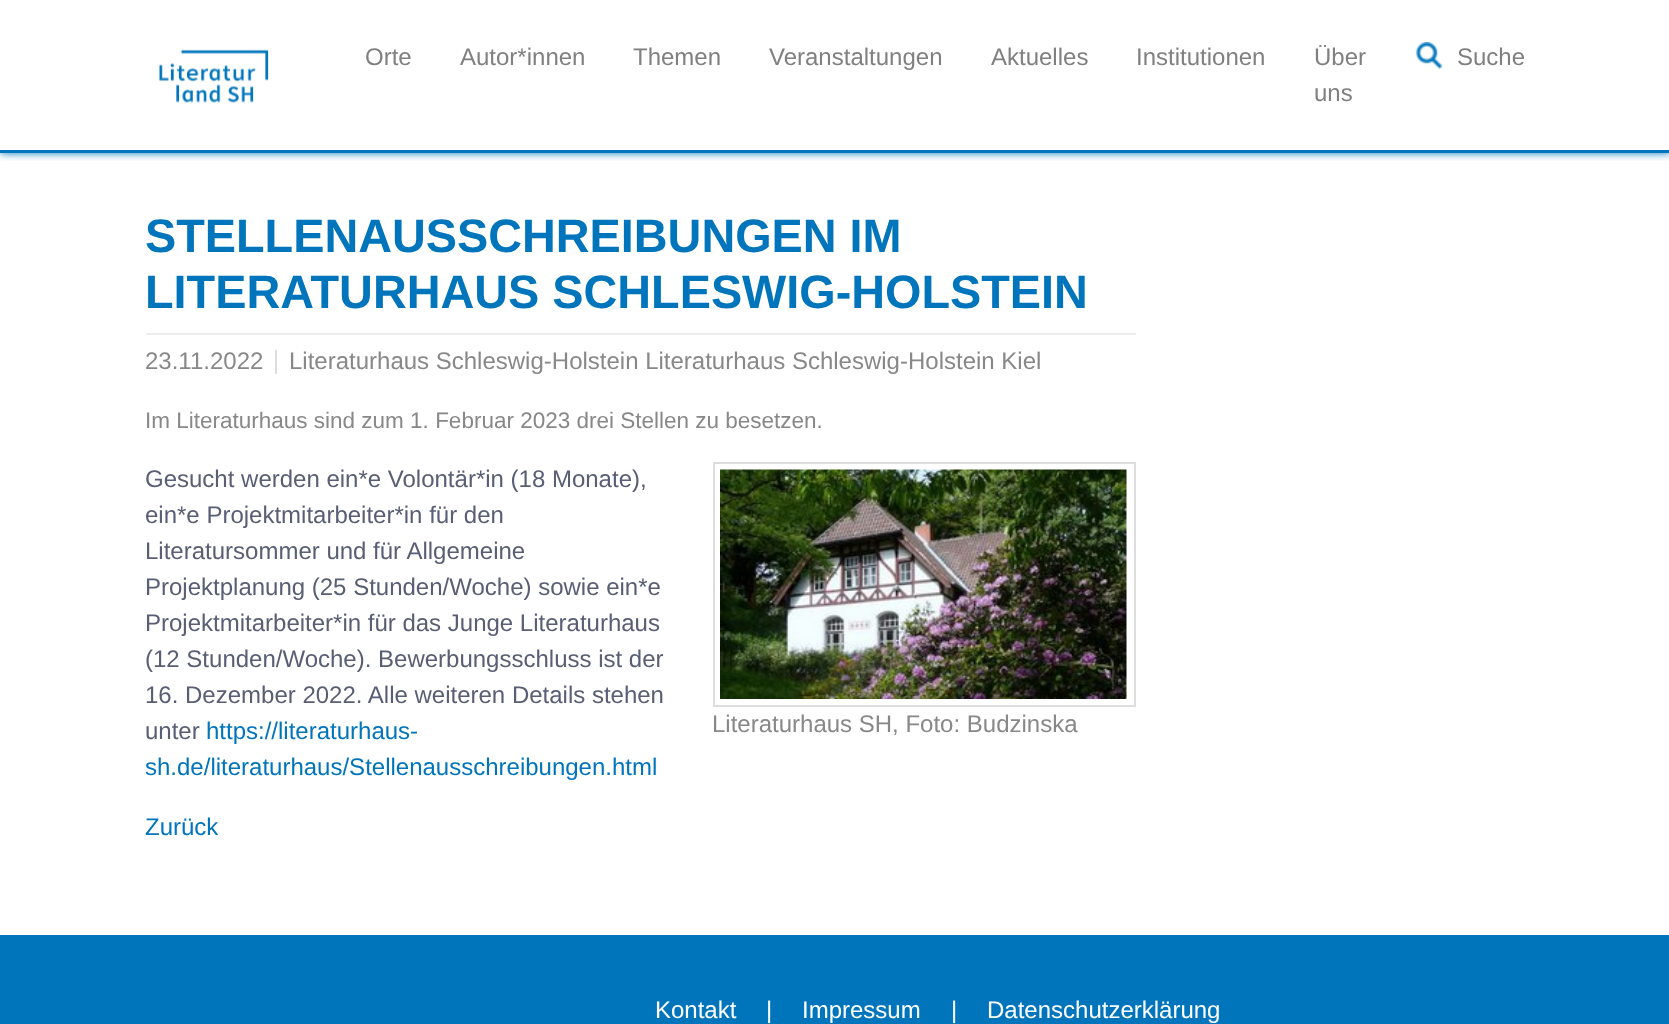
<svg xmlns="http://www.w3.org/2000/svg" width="1669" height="1024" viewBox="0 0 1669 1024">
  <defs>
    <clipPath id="clip1"><path d="M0 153h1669v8H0z"/></clipPath>
  </defs>
  <rect width="100%" height="100%" fill="#fff"/>
  <g clip-path="url(#clip1)">
    <path d="M0 0h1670v153H0z" fill="#0075bb" filter="blur(4px)"/>
  </g>
  <path d="M0 150h1669v3H0z" fill="#0075bb"/>
  <image x="158" y="49" width="111" height="54" href="img/1.png"/>
  <image x="1415" y="42" width="28" height="28" href="img/2.png"/>
  <path d="M146 333h990v2H146z" fill="#eee"/>
  <path d="M275 350h2v24H275z" fill="#ddd"/>
  <path d="M714 463h421v243H714z" fill="none" stroke="#ddd" stroke-width="2"/>
  <image x="720" y="469" width="407" height="230" href="img/3.png"/>
  <path d="M0 935h1669v89H0z" fill="#0075bb"/>
  <g font-family="Liberation Sans" font-size="24" fill="#808080">
    <text x="365" y="65">Orte</text>
    <text x="460" y="65">Autor*innen</text>
    <text x="633" y="65">Themen</text>
    <text x="769" y="65">Veranstaltungen</text>
    <text x="991" y="65">Aktuelles</text>
    <text x="1136" y="65">Institutionen</text>
    <text x="1314" y="65">Über</text>
    <text x="1314" y="101">uns</text>
    <text x="1457" y="65">Suche</text>
  </g>
  <g font-family="Liberation Sans" font-size="46.8" font-weight="bold" fill="#0075bb">
    <text x="145" y="252">STELLENAUSSCHREIBUNGEN IM</text>
    <text x="145" y="308">LITERATURHAUS SCHLESWIG-HOLSTEIN</text>
  </g>
  <g font-family="Liberation Sans" font-size="24" fill="#888">
    <text x="145" y="369">23.11.2022</text>
    <text x="289" y="369">Literaturhaus Schleswig-Holstein Literaturhaus Schleswig-Holstein Kiel</text>
  </g>
  <text x="145" y="428" font-family="Liberation Sans" font-size="22.5" fill="#888">Im Literaturhaus sind zum 1. Februar 2023 drei Stellen zu besetzen.</text>
  <g font-family="Liberation Sans" font-size="24" fill="#595e75">
    <text x="145" y="487">Gesucht werden ein*e Volontär*in (18 Monate),</text>
    <text x="145" y="523">ein*e Projektmitarbeiter*in für den</text>
    <text x="145" y="559">Literatursommer und für Allgemeine</text>
    <text x="145" y="595">Projektplanung (25 Stunden/Woche) sowie ein*e</text>
    <text x="145" y="631">Projektmitarbeiter*in für das Junge Literaturhaus</text>
    <text x="145" y="667">(12 Stunden/Woche). Bewerbungsschluss ist der</text>
    <text x="145" y="703">16. Dezember 2022. Alle weiteren Details stehen</text>
    <text x="145" y="739">unter</text>
  </g>
  <g font-family="Liberation Sans" font-size="24" fill="#0075bb">
    <text x="206" y="739">https://literaturhaus-</text>
    <text x="145" y="775">sh.de/literaturhaus/Stellenausschreibungen.html</text>
  </g>
  <text x="712" y="732" font-family="Liberation Sans" font-size="24" fill="#888">Literaturhaus SH, Foto: Budzinska</text>
  <text x="145" y="835" font-family="Liberation Sans" font-size="24" fill="#0075bb">Zurück</text>
  <g font-family="Liberation Sans" font-size="24" fill="#fff">
    <text x="655" y="1018">Kontakt</text>
    <text x="766" y="1018">|</text>
    <text x="802" y="1018">Impressum</text>
    <text x="951" y="1018">|</text>
    <text x="987" y="1018">Datenschutzerklärung</text>
  </g>
</svg>
